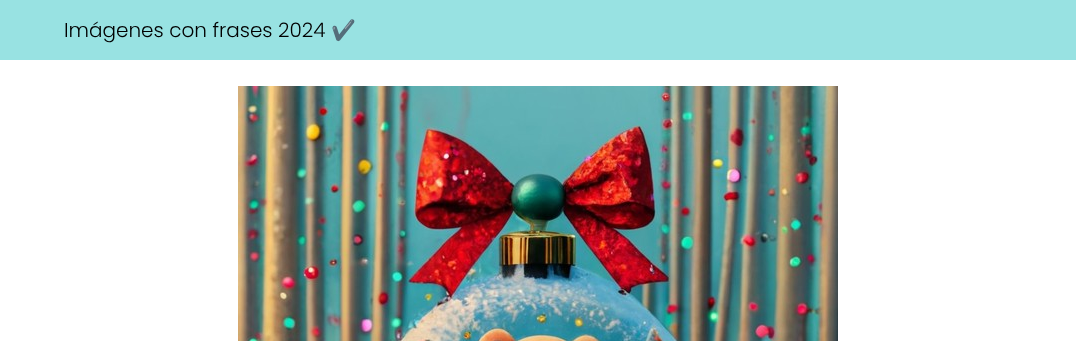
<svg xmlns="http://www.w3.org/2000/svg" width="1076" height="341" viewBox="0 0 1076 341">
  <rect width="100%" height="100%" fill="#fff"/>
  <path d="M0 0h1076v60H0z" fill="#98e2e2"/>
  <image x="238" y="86" width="600" height="255" href="img/1.png"/>
  <text x="64" y="37" font-family="Poppins" font-size="20" font-weight="300" fill="#000">Imágenes con frases 2024</text>
  <text x="331" y="37" font-family="Noto Color Emoji" font-size="20" fill="#000">✔️</text>
</svg>
